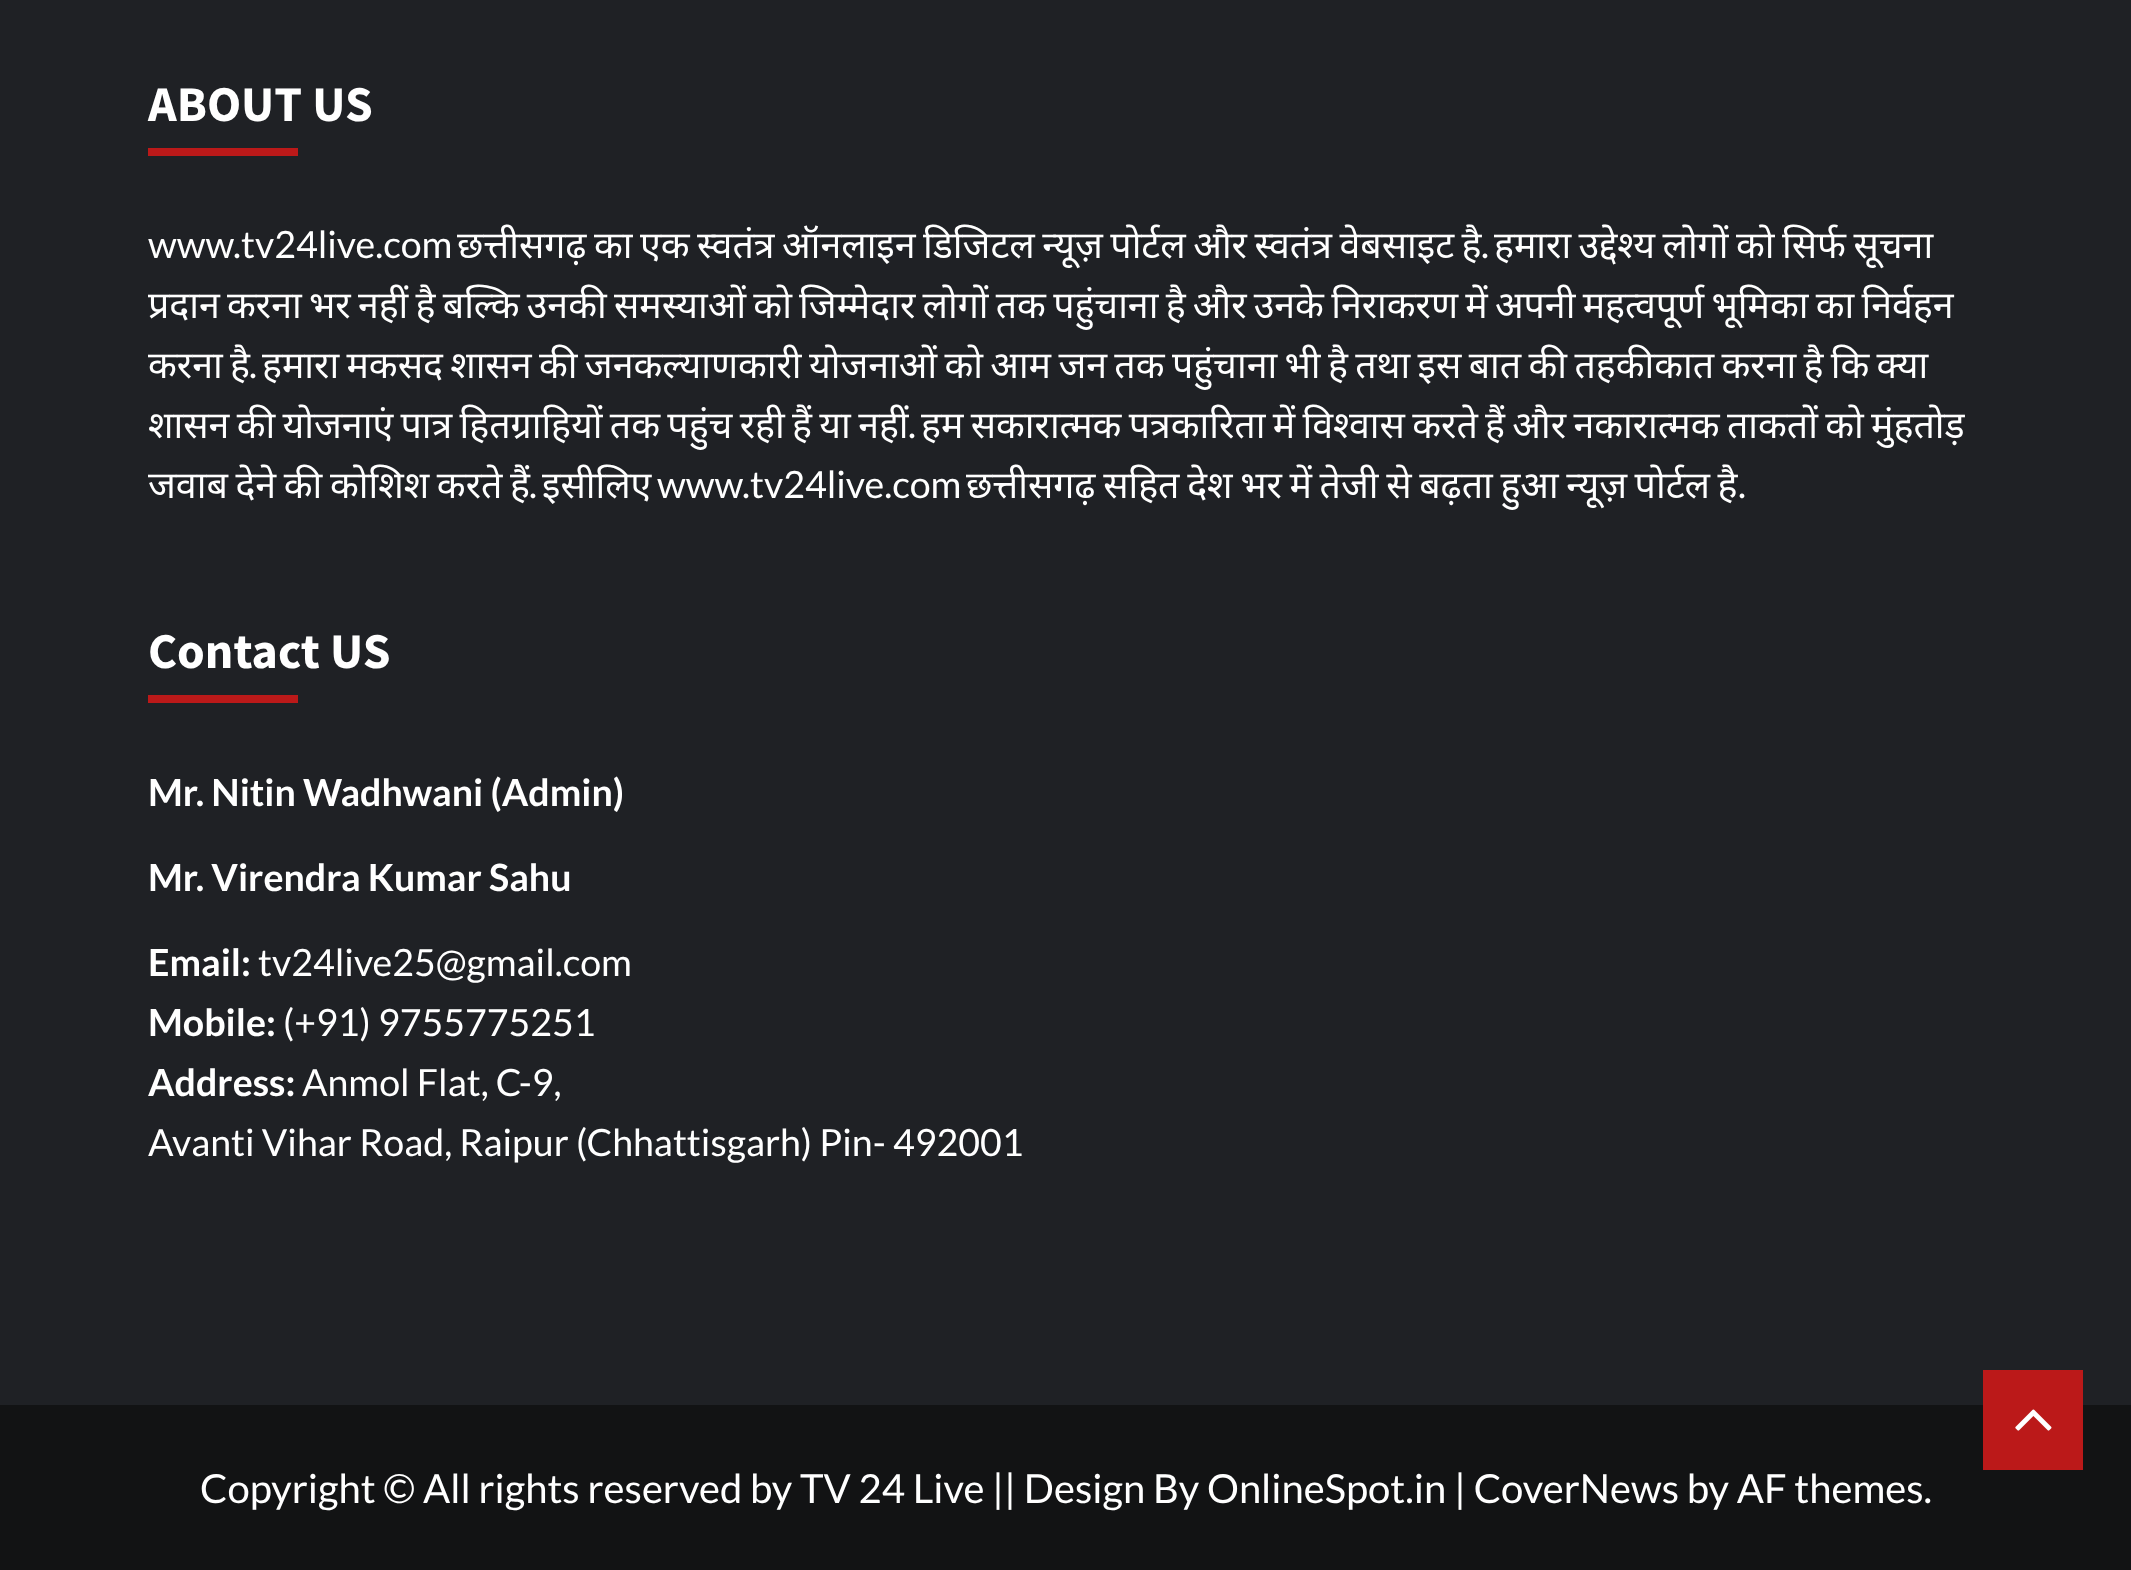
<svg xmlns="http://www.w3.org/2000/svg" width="2131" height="1570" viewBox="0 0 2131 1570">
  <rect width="100%" height="100%" fill="#1f2125"/>
  <path d="M148 148h150v8H148z" fill="#bb1919"/>
  <path d="M148 695h150v8H148z" fill="#bb1919"/>
  <path d="M0 1405h2131v165H0z" fill="#121314"/>
  <path d="M1983 1370h100v100H1983z" fill="#bb1919"/>
  <image x="2015" y="1409" width="37" height="22" href="img/1.png"/>
  <text x="148" y="121" font-family="Source Sans Pro" font-size="50" font-weight="bold" fill="#fff">ABOUT US</text>
  <text x="148" y="258" font-family="Lato" font-size="37.5" fill="#fff">www.tv24live.com</text>
  <text x="457" y="258" word-spacing="-2.25" font-family="Noto Sans" font-size="37.5" fill="#fff">छत्तीसगढ़ का एक स्वतंत्र ऑनलाइन डिजिटल न्यूज़ पोर्टल और स्वतंत्र वेबसाइट है</text>
  <text x="1481" y="258" font-family="Lato" font-size="37.5" fill="#fff">.</text>
  <g font-family="Noto Sans" font-size="37.5" fill="#fff">
    <text x="1494" y="258" word-spacing="-2.25">हमारा उद्देश्य लोगों को सिर्फ सूचना</text>
    <text x="148" y="318" word-spacing="-2.5">प्रदान करना भर नहीं है बल्कि उनकी समस्याओं को जिम्मेदार लोगों तक पहुंचाना है और उनके निराकरण में अपनी महत्वपूर्ण भूमिका का निर्वहन</text>
    <text x="148" y="378" word-spacing="-2.4">करना है</text>
  </g>
  <text x="249" y="378" font-family="Lato" font-size="37.5" fill="#fff">.</text>
  <g font-family="Noto Sans" font-size="37.5" fill="#fff">
    <text x="262" y="378" word-spacing="-2.4">हमारा मकसद शासन की जनकल्याणकारी योजनाओं को आम जन तक पहुंचाना भी है तथा इस बात की तहकीकात करना है कि क्या</text>
    <text x="148" y="438" word-spacing="-2.4">शासन की योजनाएं पात्र हितग्राहियों तक पहुंच रही हैं या नहीं</text>
  </g>
  <text x="908" y="438" font-family="Lato" font-size="37.5" fill="#fff">.</text>
  <g font-family="Noto Sans" font-size="37.5" fill="#fff">
    <text x="921" y="438" word-spacing="-2.4">हम सकारात्मक पत्रकारिता में विश्वास करते हैं और नकारात्मक ताकतों को मुंहतोड़</text>
    <text x="148" y="498" word-spacing="-2.1">जवाब देने की कोशिश करते हैं</text>
  </g>
  <text x="529" y="498" font-family="Lato" font-size="37.5" fill="#fff">.</text>
  <text x="542" y="498" font-family="Noto Sans" font-size="37.5" fill="#fff">इसीलिए</text>
  <text x="657" y="498" font-family="Lato" font-size="37.5" fill="#fff">www.tv24live.com</text>
  <text x="966" y="498" word-spacing="-2.1" font-family="Noto Sans" font-size="37.5" fill="#fff">छत्तीसगढ़ सहित देश भर में तेजी से बढ़ता हुआ न्यूज़ पोर्टल है</text>
  <text x="1738" y="498" font-family="Lato" font-size="37.5" fill="#fff">.</text>
  <text x="148" y="668" font-family="Source Sans Pro" font-size="50" font-weight="bold" fill="#fff">Contact US</text>
  <g font-family="Lato" font-size="37.5" font-weight="bold" fill="#fff">
    <text x="148" y="806">Mr. Nitin Wadhwani (Admin)</text>
    <text x="148" y="891">Mr. Virendra Kumar Sahu</text>
    <text x="148" y="976">Email:</text>
  </g>
  <text x="258" y="976" font-family="Lato" font-size="37.5" fill="#fff">tv24live25@gmail.com</text>
  <text x="148" y="1036" font-family="Lato" font-size="37.5" font-weight="bold" fill="#fff">Mobile:</text>
  <text x="283" y="1036" font-family="Lato" font-size="37.5" fill="#fff">(+91) 9755775251</text>
  <text x="148" y="1096" font-family="Lato" font-size="37.5" font-weight="bold" fill="#fff">Address:</text>
  <g font-family="Lato" font-size="37.5" fill="#fff">
    <text x="302" y="1096">Anmol Flat, C-9,</text>
    <text x="148" y="1156">Avanti Vihar Road, Raipur (Chhattisgarh) Pin- 492001</text>
  </g>
  <text x="200" y="1503" font-family="Lato" font-size="40" fill="#fff">Copyright © All rights reserved by TV 24 Live || Design By OnlineSpot.in | CoverNews by AF themes.</text>
</svg>
